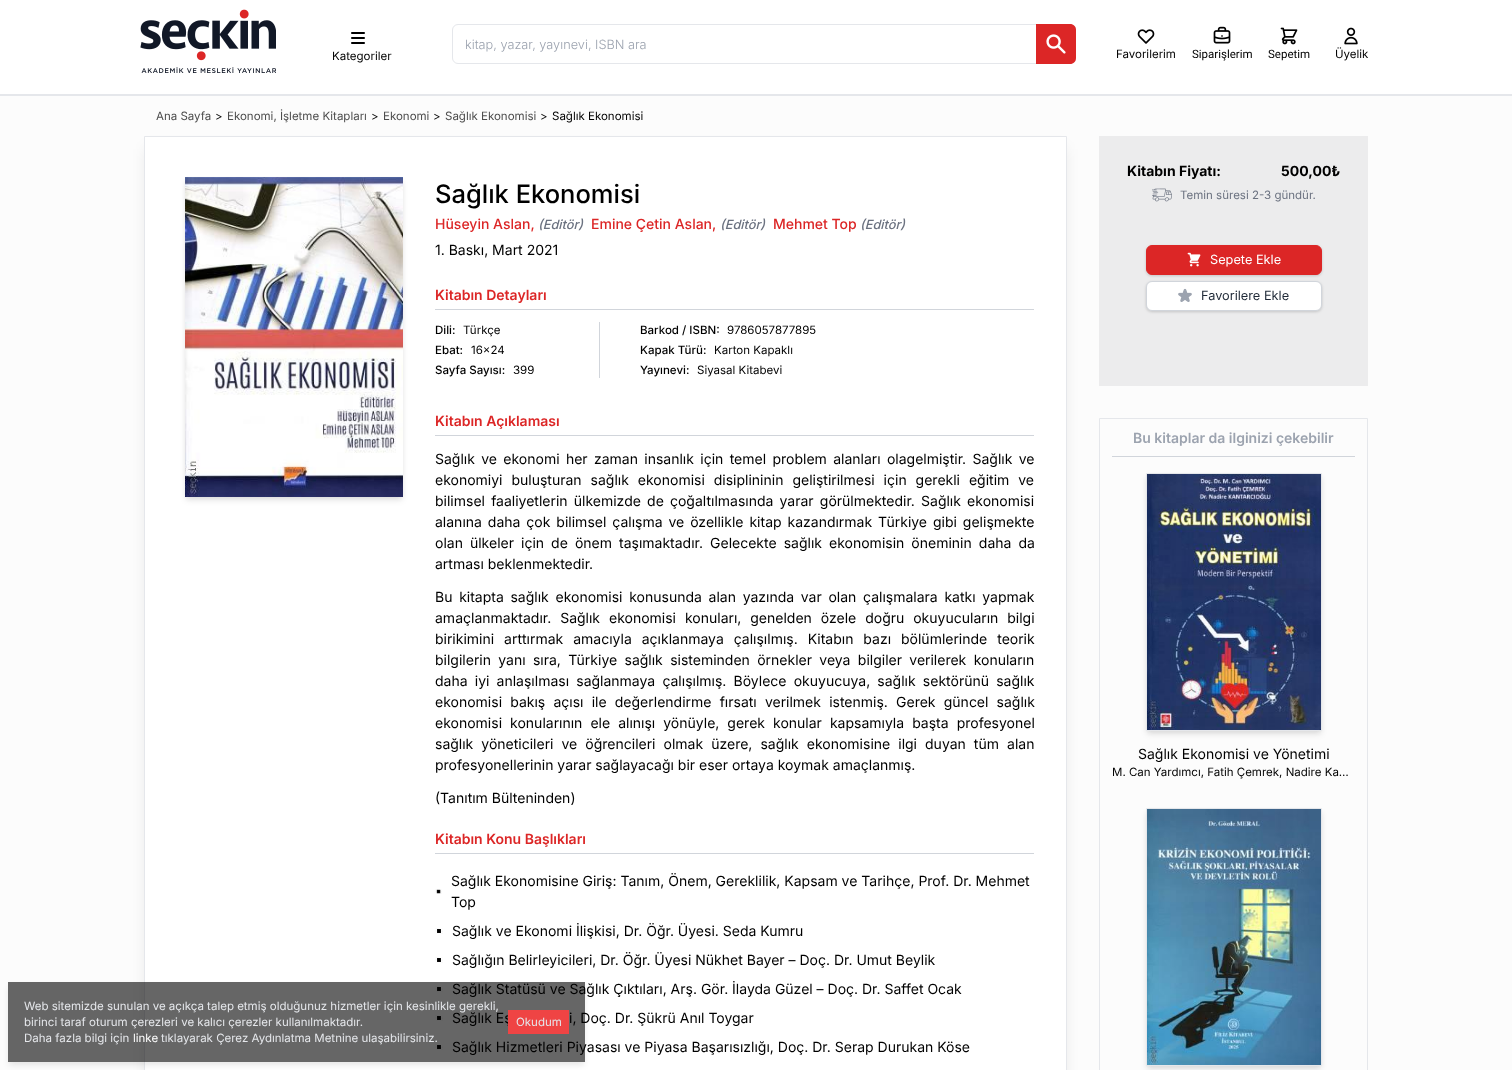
<svg xmlns="http://www.w3.org/2000/svg" width="1512" height="1070" viewBox="0 0 1512 1070">
  <defs>
    <clipPath id="clip1"><path d="M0 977H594V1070H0ZM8 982H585V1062H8Z" clip-rule="evenodd"/></clipPath>
  </defs>
  <rect width="100%" height="100%" fill="#fff"/>
  <path d="M0 94h1512v2H0z" fill="#e5e7eb"/>
  <image x="140" y="9" width="136" height="64" href="img/1.png"/>
  <rect x="452.5" y="24.5" width="623" height="39" rx="5.5" fill="none" stroke="#e5e7eb"/>
  <path d="M1036 24H1070C1073.5 24 1076 26.5 1076 30V58C1076 61.5 1073.5 64 1070 64H1036Z" fill="#dc2626"/>
  <image x="1046" y="34" width="20" height="20" href="img/2.png"/>
  <image x="351" y="32" width="14" height="12" href="img/3.png"/>
  <image x="1137" y="29" width="18" height="15" href="img/4.png"/>
  <image x="1213" y="26" width="18" height="18" href="img/5.png"/>
  <image x="1280" y="27" width="18" height="18" href="img/6.png"/>
  <image x="1344" y="27" width="14" height="18" href="img/7.png"/>
  <path d="M0 96h1512v974H0z" fill="#fcfcfc"/>
  <path d="M147 149h917v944H147z" fill="#0000001a" filter="blur(7.5px)"/>
  <path d="M144.5 136.5h922v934H144.5z" fill="#fff" stroke="#e5e7eb"/>
  <path d="M186 180h216v318H186z" fill="#0000000f" filter="blur(2px)"/>
  <path d="M186 182h216v318H186z" fill="#0000001a" filter="blur(3px)"/>
  <image x="185" y="177" width="218" height="320" href="img/8.png"/>
  <path d="M435 309h599v1H435z" fill="#d1d5db"/>
  <path d="M599 322h1v56H599z" fill="#d1d5db"/>
  <path d="M435 435h599v1H435z" fill="#d1d5db"/>
  <path d="M435 853h599v1H435z" fill="#d1d5db"/>
  <image x="435" y="889" width="7" height="5" href="img/9.png"/>
  <image x="435" y="928" width="8" height="6" href="img/10.png"/>
  <image x="435" y="957" width="8" height="6" href="img/10.png"/>
  <image x="435" y="986" width="8" height="6" href="img/10.png"/>
  <image x="435" y="1015" width="8" height="6" href="img/10.png"/>
  <image x="435" y="1044" width="8" height="6" href="img/10.png"/>
  <path d="M1099 136h269v250H1099z" fill="#ececed"/>
  <image x="1152" y="188" width="20" height="14" href="img/11.png"/>
  <rect x="1146" y="246" width="176" height="30" rx="6" fill="#0000000f" filter="blur(1px)"/>
  <rect x="1146" y="246" width="176" height="30" rx="6" fill="#0000001a" filter="blur(1.5px)"/>
  <rect x="1146.5" y="245.5" width="175" height="29" rx="5.5" fill="#dc2626" stroke="#dc2626"/>
  <image x="1187" y="252" width="14" height="15" href="img/12.png"/>
  <rect x="1146" y="282" width="176" height="30" rx="6" fill="#0000000f" filter="blur(1px)"/>
  <rect x="1146" y="282" width="176" height="30" rx="6" fill="#0000001a" filter="blur(1.5px)"/>
  <rect x="1146.5" y="281.5" width="175" height="29" rx="5.5" fill="#fff" stroke="#d1d5db"/>
  <image x="1178" y="288" width="14" height="14" href="img/13.png"/>
  <path d="M1099.5 418.5h268v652H1099.5z" fill="none" stroke="#e5e7eb"/>
  <path d="M1112 456h243v1H1112z" fill="#d1d5db"/>
  <path d="M1147 476h174v256H1147z" fill="#0000000f" filter="blur(2px)"/>
  <path d="M1147 478h174v256H1147z" fill="#0000001a" filter="blur(3px)"/>
  <path d="M1146.5 473.5h175v257H1146.5z" fill="none" stroke="#e5e7eb"/>
  <image x="1147" y="474" width="174" height="256" href="img/14.png"/>
  <path d="M1147 811h174v256H1147z" fill="#0000000f" filter="blur(2px)"/>
  <path d="M1147 813h174v256H1147z" fill="#0000001a" filter="blur(3px)"/>
  <path d="M1146.5 808.5h175v257H1146.5z" fill="none" stroke="#e5e7eb"/>
  <image x="1147" y="809" width="174" height="256" href="img/15.png"/>
  <g clip-path="url(#clip1)">
    <path d="M9 987h575v78H9z" fill="#0000001a" filter="blur(3px)"/>
  </g>
  <text x="465" y="49" font-family="Inter" font-size="12.75" font-weight="300" fill="#9ca3af">kitap, yazar, yayınevi, ISBN ara</text>
  <g font-family="Inter" font-size="11.5" fill="#000">
    <text x="332" y="60">Kategoriler</text>
    <text x="1116" y="58">Favorilerim</text>
  </g>
  <g font-family="Roboto" font-size="11.5" fill="#000">
    <text x="1192" y="58">Siparişlerim</text>
    <text x="1268" y="58">Sepetim</text>
  </g>
  <text x="1335" y="58" font-family="Inter" font-size="11.5" fill="#000">Üyelik</text>
  <text x="156" y="120" font-family="Inter" font-size="11.5" fill="#4c4c4c">Ana Sayfa</text>
  <text x="215" y="120" font-family="Inter" font-size="11.5" fill="#000">&gt;</text>
  <text x="227" y="120" font-family="Inter" font-size="11.5" fill="#4c4c4c">Ekonomi, İşletme Kitapları</text>
  <text x="371" y="120" font-family="Inter" font-size="11.5" fill="#000">&gt;</text>
  <text x="383" y="120" font-family="Inter" font-size="11.5" fill="#4c4c4c">Ekonomi</text>
  <text x="433" y="120" font-family="Inter" font-size="11.5" fill="#000">&gt;</text>
  <text x="445" y="120" font-family="Inter" font-size="11.5" fill="#4c4c4c">Sağlık Ekonomisi</text>
  <g font-family="Inter" font-size="11.5" fill="#000">
    <text x="540" y="120">&gt;</text>
    <text x="552" y="120">Sağlık Ekonomisi</text>
  </g>
  <text x="435" y="203" font-family="Inter" font-size="25.5" font-weight="500" fill="#000">Sağlık Ekonomisi</text>
  <text x="435" y="229" font-family="Inter" font-size="14" font-weight="500" fill="#dc2626">Hüseyin Aslan,</text>
  <text x="538" y="229" font-family="Inter" font-size="12.75" font-weight="500" font-style="italic" fill="#6b7280">(Editör)</text>
  <text x="591" y="229" font-family="Inter" font-size="14" font-weight="500" fill="#dc2626">Emine Çetin Aslan,</text>
  <text x="720" y="229" font-family="Inter" font-size="12.75" font-weight="500" font-style="italic" fill="#6b7280">(Editör)</text>
  <text x="773" y="229" font-family="Inter" font-size="14" font-weight="500" fill="#dc2626">Mehmet Top</text>
  <text x="860" y="229" font-family="Inter" font-size="12.75" font-weight="500" font-style="italic" fill="#6b7280">(Editör)</text>
  <text x="435" y="255" font-family="Inter" font-size="14" fill="#000">1. Baskı, Mart 2021</text>
  <text x="435" y="300" font-family="Inter" font-size="14" font-weight="600" fill="#dc2626">Kitabın Detayları</text>
  <text x="435" y="334" font-family="Inter" font-size="11.5" font-weight="500" fill="#000">Dili:</text>
  <text x="463" y="334" font-family="Inter" font-size="11.5" fill="#000">Türkçe</text>
  <text x="435" y="354" font-family="Inter" font-size="11.5" font-weight="500" fill="#000">Ebat:</text>
  <text x="471" y="354" font-family="Inter" font-size="11.5" fill="#000">16x24</text>
  <text x="435" y="374" font-family="Inter" font-size="11.5" font-weight="500" fill="#000">Sayfa Sayısı:</text>
  <text x="513" y="374" font-family="Inter" font-size="11.5" fill="#000">399</text>
  <text x="640" y="334" font-family="Inter" font-size="11.5" font-weight="500" fill="#000">Barkod / ISBN:</text>
  <text x="727" y="334" font-family="Inter" font-size="11.5" fill="#000">9786057877895</text>
  <text x="640" y="354" font-family="Inter" font-size="11.5" font-weight="500" fill="#000">Kapak Türü:</text>
  <text x="714" y="354" font-family="Inter" font-size="11.5" fill="#000">Karton Kapaklı</text>
  <text x="640" y="374" font-family="Inter" font-size="11.5" font-weight="500" fill="#000">Yayınevi:</text>
  <text x="697" y="374" font-family="Inter" font-size="11.5" fill="#000">Siyasal Kitabevi</text>
  <text x="435" y="426" font-family="Inter" font-size="14" font-weight="600" fill="#dc2626">Kitabın Açıklaması</text>
  <g font-family="Inter" font-size="14" fill="#000">
    <text x="435" y="464" word-spacing="2.4">Sağlık ve ekonomi her zaman insanlık için temel problem alanları olagelmiştir. Sağlık ve</text>
    <text x="435" y="485" word-spacing="5">ekonomiyi buluşturan sağlık ekonomisi disiplininin geliştirilmesi için gerekli eğitim ve</text>
    <text x="435" y="506" word-spacing="2.25">bilimsel faaliyetlerin ülkemizde de çoğaltılmasında yarar görülmektedir. Sağlık ekonomisi</text>
    <text x="435" y="527" word-spacing="2">alanına daha çok bilimsel çalışma ve özellikle kitap kazandırmak Türkiye gibi gelişmekte</text>
    <text x="435" y="548" word-spacing="3.1">olan ülkeler için de önem taşımaktadır. Gelecekte sağlık ekonomisin öneminin daha da</text>
    <text x="435" y="569">artması beklenmektedir.</text>
    <text x="435" y="602" word-spacing="2.75">Bu kitapta sağlık ekonomisi konusunda alan yazında var olan çalışmalara katkı yapmak</text>
    <text x="435" y="623" word-spacing="5">amaçlanmaktadır. Sağlık ekonomisi konuları, genelden özele doğru okuyucuların bilgi</text>
    <text x="435" y="644" word-spacing="6">birikimini arttırmak amacıyla açıklanmaya çalışılmış. Kitabın bazı bölümlerinde teorik</text>
    <text x="435" y="665" word-spacing="3.4">bilgilerin yanı sıra, Türkiye sağlık sisteminden örnekler veya bilgiler verilerek konuların</text>
    <text x="435" y="686" word-spacing="3.25">daha iyi anlaşılması sağlanmaya çalışılmış. Böylece okuyucuya, sağlık sektörünü sağlık</text>
    <text x="435" y="707" word-spacing="4.25">ekonomisi bakış açısı ile değerlendirme fırsatı verilmek istenmiş. Gerek güncel sağlık</text>
    <text x="435" y="728" word-spacing="4.1">ekonomisi konularının ele alınışı yönüyle, gerek konular kapsamıyla başta profesyonel</text>
    <text x="435" y="749" word-spacing="4.1">sağlık yöneticileri ve öğrencileri olmak üzere, sağlık ekonomisine ilgi duyan tüm alan</text>
    <text x="435" y="770">profesyonellerinin yarar sağlayacağı bir eser ortaya koymak amaçlanmış.</text>
    <text x="435" y="803">(Tanıtım Bülteninden)</text>
  </g>
  <text x="435" y="844" font-family="Inter" font-size="14" font-weight="600" fill="#dc2626">Kitabın Konu Başlıkları</text>
  <g font-family="Inter" font-size="14" fill="#000">
    <text x="451" y="886">Sağlık Ekonomisine Giriş: Tanım, Önem, Gereklilik, Kapsam ve Tarihçe, Prof. Dr. Mehmet</text>
    <text x="451" y="907">Top</text>
    <text x="452" y="936">Sağlık ve Ekonomi İlişkisi, Dr. Öğr. Üyesi. Seda Kumru</text>
    <text x="452" y="965">Sağlığın Belirleyicileri, Dr. Öğr. Üyesi Nükhet Bayer – Doç. Dr. Umut Beylik</text>
    <text x="452" y="994">Sağlık Statüsü ve Sağlık Çıktıları, Arş. Gör. İlayda Güzel – Doç. Dr. Saffet Ocak</text>
    <text x="452" y="1023">Sağlık Eş</text>
    <text x="569" y="1023">i, Doç. Dr. Şükrü Anıl Toygar</text>
    <text x="452" y="1052">Sağlık Hizmetleri Piyasası ve Piyasa Başarısızlığı, Doç. Dr. Serap Durukan Köse</text>
  </g>
  <g font-family="Inter" font-size="14" font-weight="bold" fill="#000">
    <text x="1127" y="176">Kitabın Fiyatı:</text>
    <text x="1281" y="176">500,00₺</text>
  </g>
  <text x="1180" y="199" font-family="Inter" font-size="11.5" fill="#6b7280">Temin süresi 2-3 gündür.</text>
  <text x="1210" y="264" font-family="Inter" font-size="12.75" fill="#fff">Sepete Ekle</text>
  <text x="1201" y="300" font-family="Inter" font-size="12.75" fill="#1f2937">Favorilere Ekle</text>
  <text x="1133" y="443" font-family="Inter" font-size="14" font-weight="600" fill="#9ca3af">Bu kitaplar da ilginizi çekebilir</text>
  <text x="1138" y="759" font-family="Inter" font-size="14" fill="#000">Sağlık Ekonomisi ve Yönetimi</text>
  <text x="1112" y="776" font-family="Inter" font-size="11.5" fill="#000">M. Can Yardımcı, Fatih Çemrek, Nadire Ka…</text>
  <path d="M8 982h577v80H8z" fill="#00000099"/>
  <g font-family="Inter" font-size="11.5" fill="#e5e7eb">
    <text x="24" y="1010">Web sitemizde sunulan ve açıkça talep etmiş olduğunuz hizmetler için kesinlikle gerekli,</text>
    <text x="24" y="1026">birinci taraf oturum çerezleri ve kalıcı çerezler kullanılmaktadır.</text>
    <text x="24" y="1042">Daha fazla bilgi için</text>
  </g>
  <text x="133" y="1042" font-family="Inter" font-size="11.5" fill="#fff">linke</text>
  <text x="161" y="1042" font-family="Inter" font-size="11.5" fill="#e5e7eb">tıklayarak Çerez Aydınlatma Metnine ulaşabilirsiniz.</text>
  <path d="M508 1010h61v24H508z" fill="#ef4444"/>
  <text x="516" y="1026" font-family="Inter" font-size="11.5" fill="#e5e7eb">Okudum</text>
</svg>
